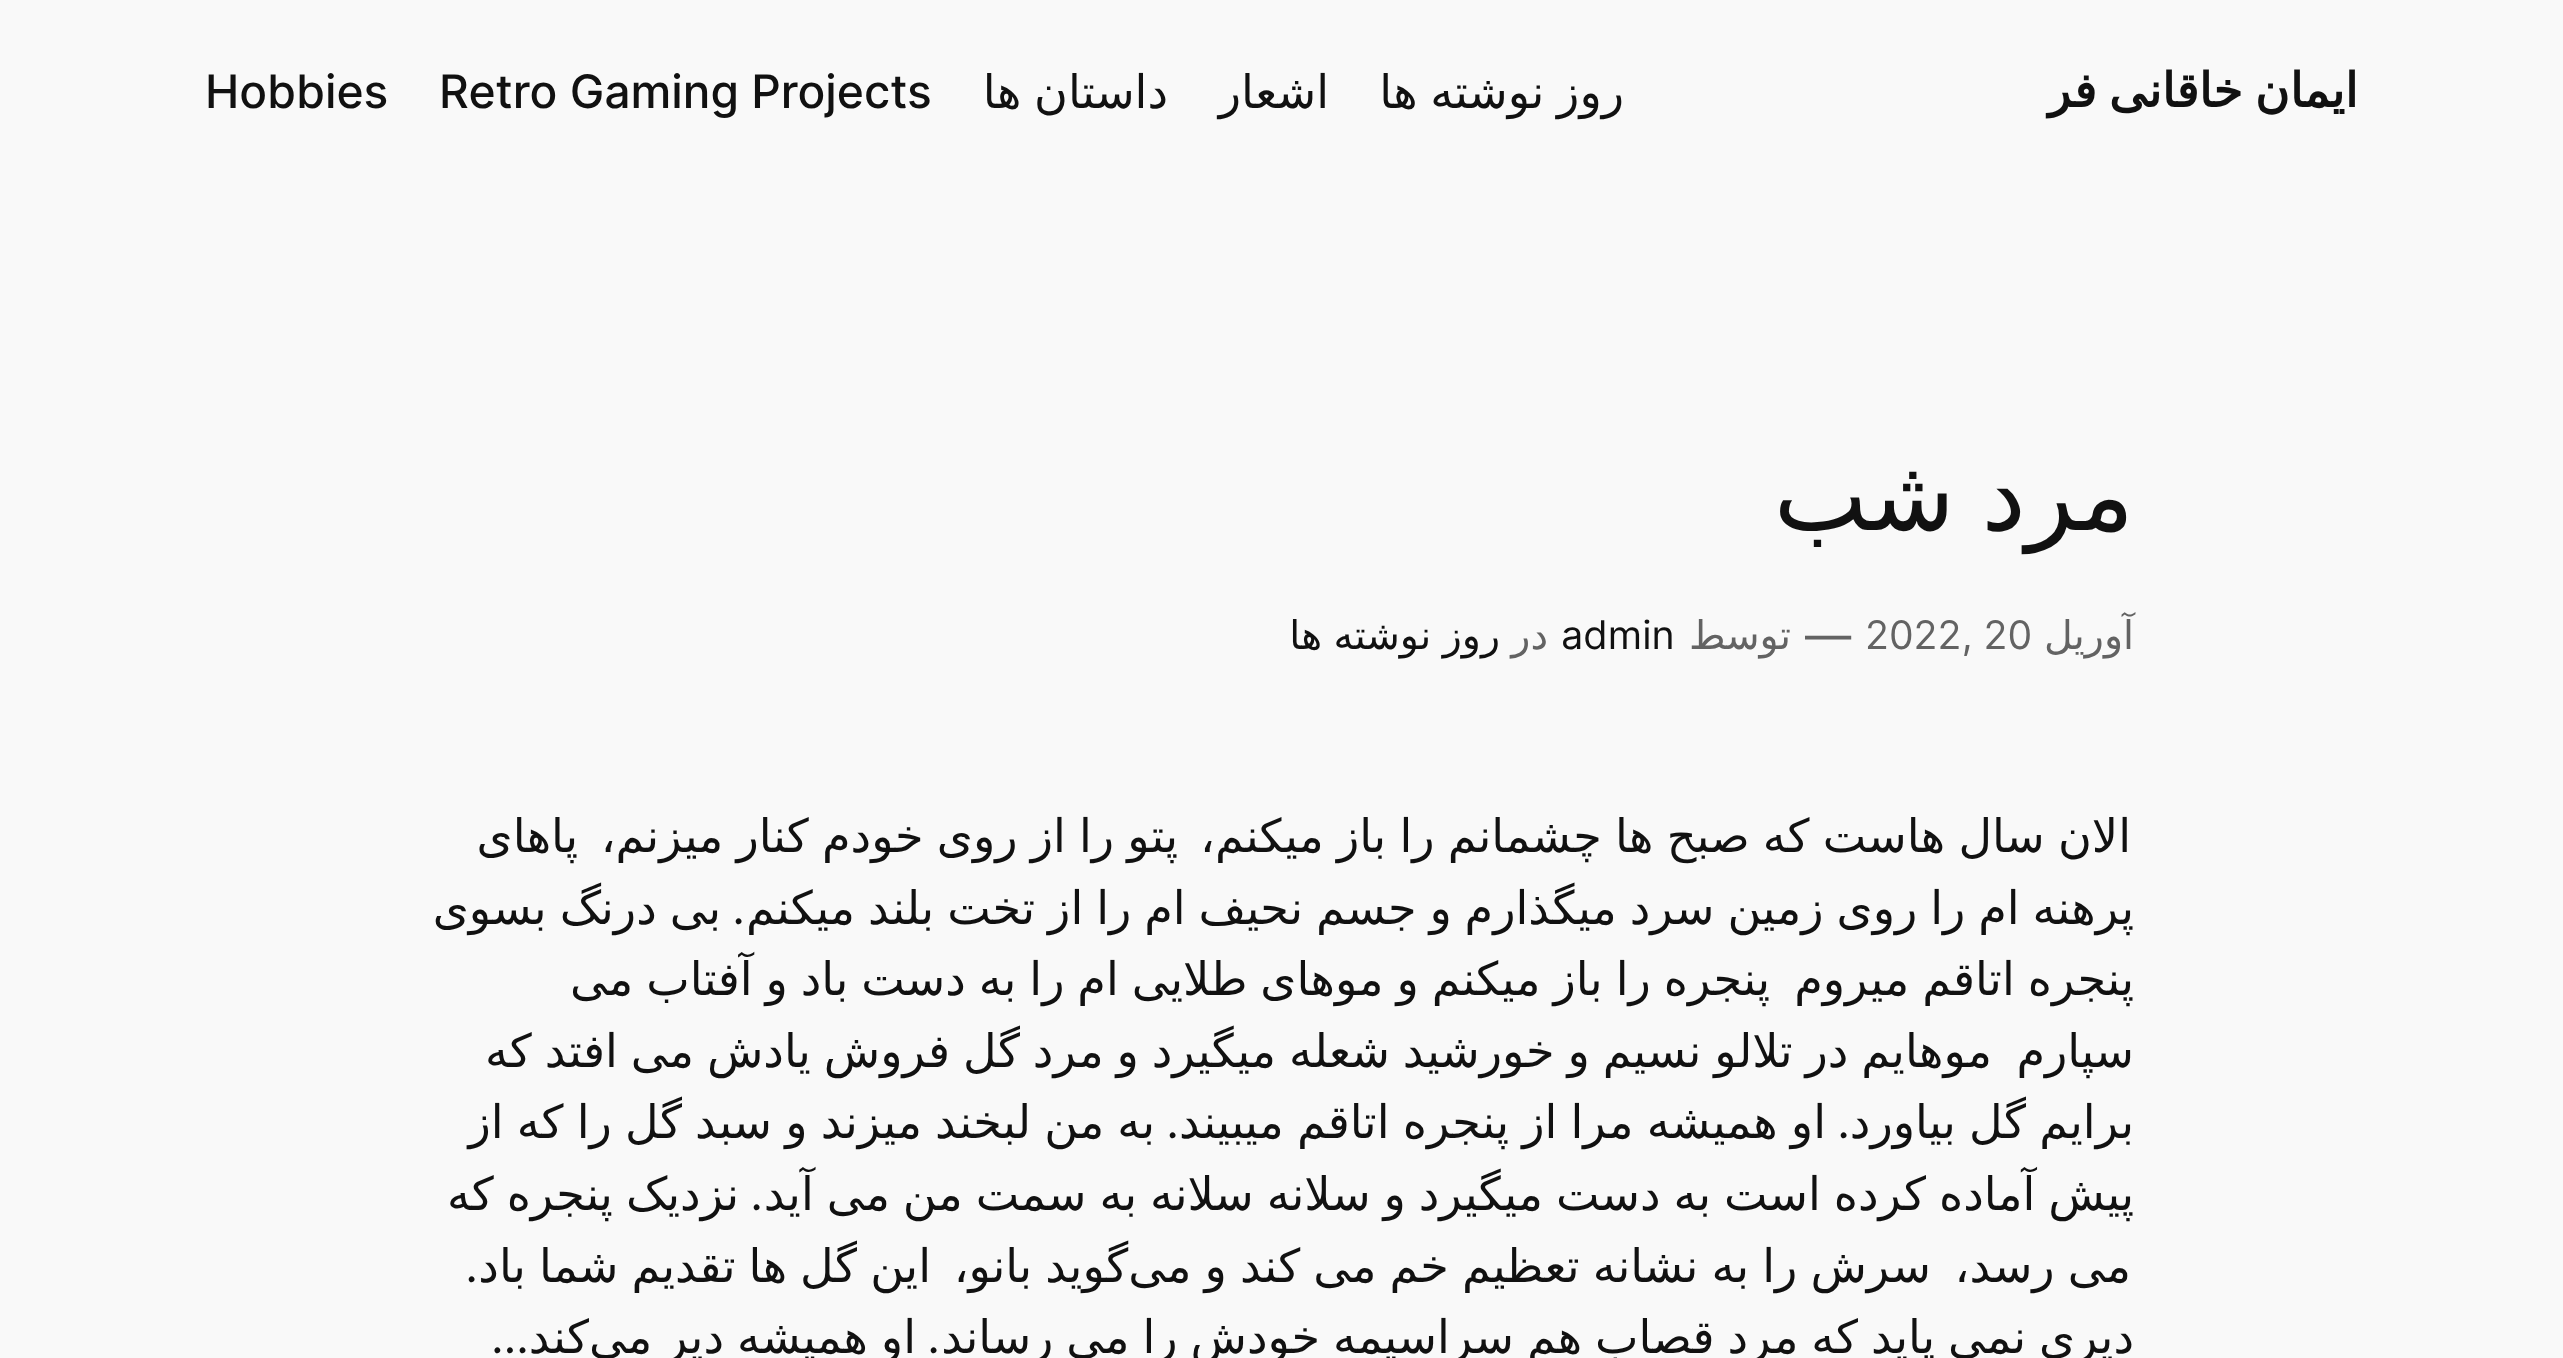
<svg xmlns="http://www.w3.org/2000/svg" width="2563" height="1358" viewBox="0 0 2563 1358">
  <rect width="100%" height="100%" fill="#f9f9f9"/>
  <text x="2358" y="107" word-spacing="-3" font-family="DejaVu Sans" font-size="47.5" font-weight="bold" direction="rtl" fill="#111">ایمان خاقانی فر</text>
  <g font-family="DejaVu Sans" font-size="46.2" direction="rtl" fill="#111">
    <text x="1624" y="108" word-spacing="-2">روز نوشته ها</text>
    <text x="1329" y="108">اشعار</text>
    <text x="1168" y="108" word-spacing="-2">داستان ها</text>
  </g>
  <g font-family="Inter" font-size="46.2" font-weight="500" fill="#111">
    <text x="439" y="108">Retro Gaming Projects</text>
    <text x="205" y="108">Hobbies</text>
  </g>
  <text x="2134" y="530" word-spacing="-5" font-family="DejaVu Sans" font-size="99.5" direction="rtl" fill="#111">مرد شب</text>
  <text x="2134" y="649" font-family="DejaVu Sans" font-size="39.5" direction="rtl" fill="#636363">آوریل</text>
  <text x="1865" y="649" font-family="Inter" font-size="39.5" fill="#636363">2022, 20</text>
  <text x="1805" y="652" font-family="Inter" font-size="46.2" fill="#636363">—</text>
  <text x="1791" y="649" font-family="DejaVu Sans" font-size="39.5" direction="rtl" fill="#636363">توسط</text>
  <text x="1561" y="649" font-family="Inter" font-size="39.5" fill="#111">admin</text>
  <text x="1548" y="649" font-family="DejaVu Sans" font-size="39.5" direction="rtl" fill="#636363">در</text>
  <text x="1500" y="649" word-spacing="-1" font-family="DejaVu Sans" font-size="39.5" direction="rtl" fill="#111">روز نوشته ها</text>
  <g font-family="DejaVu Sans" font-size="46.2" direction="rtl" fill="#111">
    <text x="2131" y="852" word-spacing="-1.5">الان سال هاست که صبح ها چشمانم را باز میکنم،</text>
    <text x="1178" y="852" word-spacing="-1.5">پتو را از روی خودم کنار میزنم،</text>
    <text x="578" y="852">پاهای</text>
    <text x="2134" y="924" word-spacing="-1.75">پرهنه ام را روی زمین سرد میگذارم و جسم نحیف ام را از تخت بلند میکنم</text>
  </g>
  <text x="745" y="924" font-family="Inter" font-size="46.2" direction="rtl" fill="#111">.</text>
  <g font-family="DejaVu Sans" font-size="46.2" direction="rtl" fill="#111">
    <text x="721" y="924" word-spacing="-1.75">بی درنگ بسوی</text>
    <text x="2134" y="995" word-spacing="-1.75">پنجره اتاقم میروم</text>
    <text x="1770" y="995" word-spacing="-1.75">پنجره را باز میکنم و موهای طلایی ام را به دست باد و آفتاب می</text>
    <text x="2134" y="1067">سپارم</text>
    <text x="1992" y="1067" word-spacing="-1.75">موهایم در تلالو نسیم و خورشید شعله میگیرد و مرد گل فروش یادش می افتد که</text>
    <text x="2134" y="1138" word-spacing="-1.5">برایم گل بیاورد</text>
  </g>
  <text x="1850" y="1138" font-family="Inter" font-size="46.2" direction="rtl" fill="#111">.</text>
  <text x="1826" y="1138" word-spacing="-1.5" font-family="DejaVu Sans" font-size="46.2" direction="rtl" fill="#111">او همیشه مرا از پنجره اتاقم میبیند</text>
  <text x="1179" y="1138" font-family="Inter" font-size="46.2" direction="rtl" fill="#111">.</text>
  <g font-family="DejaVu Sans" font-size="46.2" direction="rtl" fill="#111">
    <text x="1155" y="1138" word-spacing="-1.5">به من لبخند میزند و سبد گل را که از</text>
    <text x="2134" y="1210" word-spacing="-1.75">پیش آماده کرده است به دست میگیرد و سلانه سلانه به سمت من می آید</text>
  </g>
  <text x="763" y="1210" font-family="Inter" font-size="46.2" direction="rtl" fill="#111">.</text>
  <g font-family="DejaVu Sans" font-size="46.2" direction="rtl" fill="#111">
    <text x="739" y="1210" word-spacing="-1.75">نزدیک پنجره که</text>
    <text x="2131" y="1282" word-spacing="-1.6">می رسد،</text>
    <text x="1931" y="1282" word-spacing="-1.6">سرش را به نشانه تعظیم خم می کند و می‌گوید بانو،</text>
    <text x="931" y="1282" word-spacing="-1.6">این گل ها تقدیم شما باد</text>
  </g>
  <text x="478" y="1282" font-family="Inter" font-size="46.2" direction="rtl" fill="#111">.</text>
  <text x="2134" y="1353" word-spacing="-1.75" font-family="DejaVu Sans" font-size="46.2" direction="rtl" fill="#111">دیری نمی پاید که مرد قصاب هم سراسیمه خودش را می رساند</text>
  <text x="940" y="1353" font-family="Inter" font-size="46.2" direction="rtl" fill="#111">.</text>
  <text x="916" y="1353" word-spacing="-1.75" font-family="DejaVu Sans" font-size="46.2" direction="rtl" fill="#111">او همیشه دیر می‌کند</text>
  <text x="529" y="1353" font-family="Inter" font-size="46.2" direction="rtl" fill="#111">…</text>
</svg>
